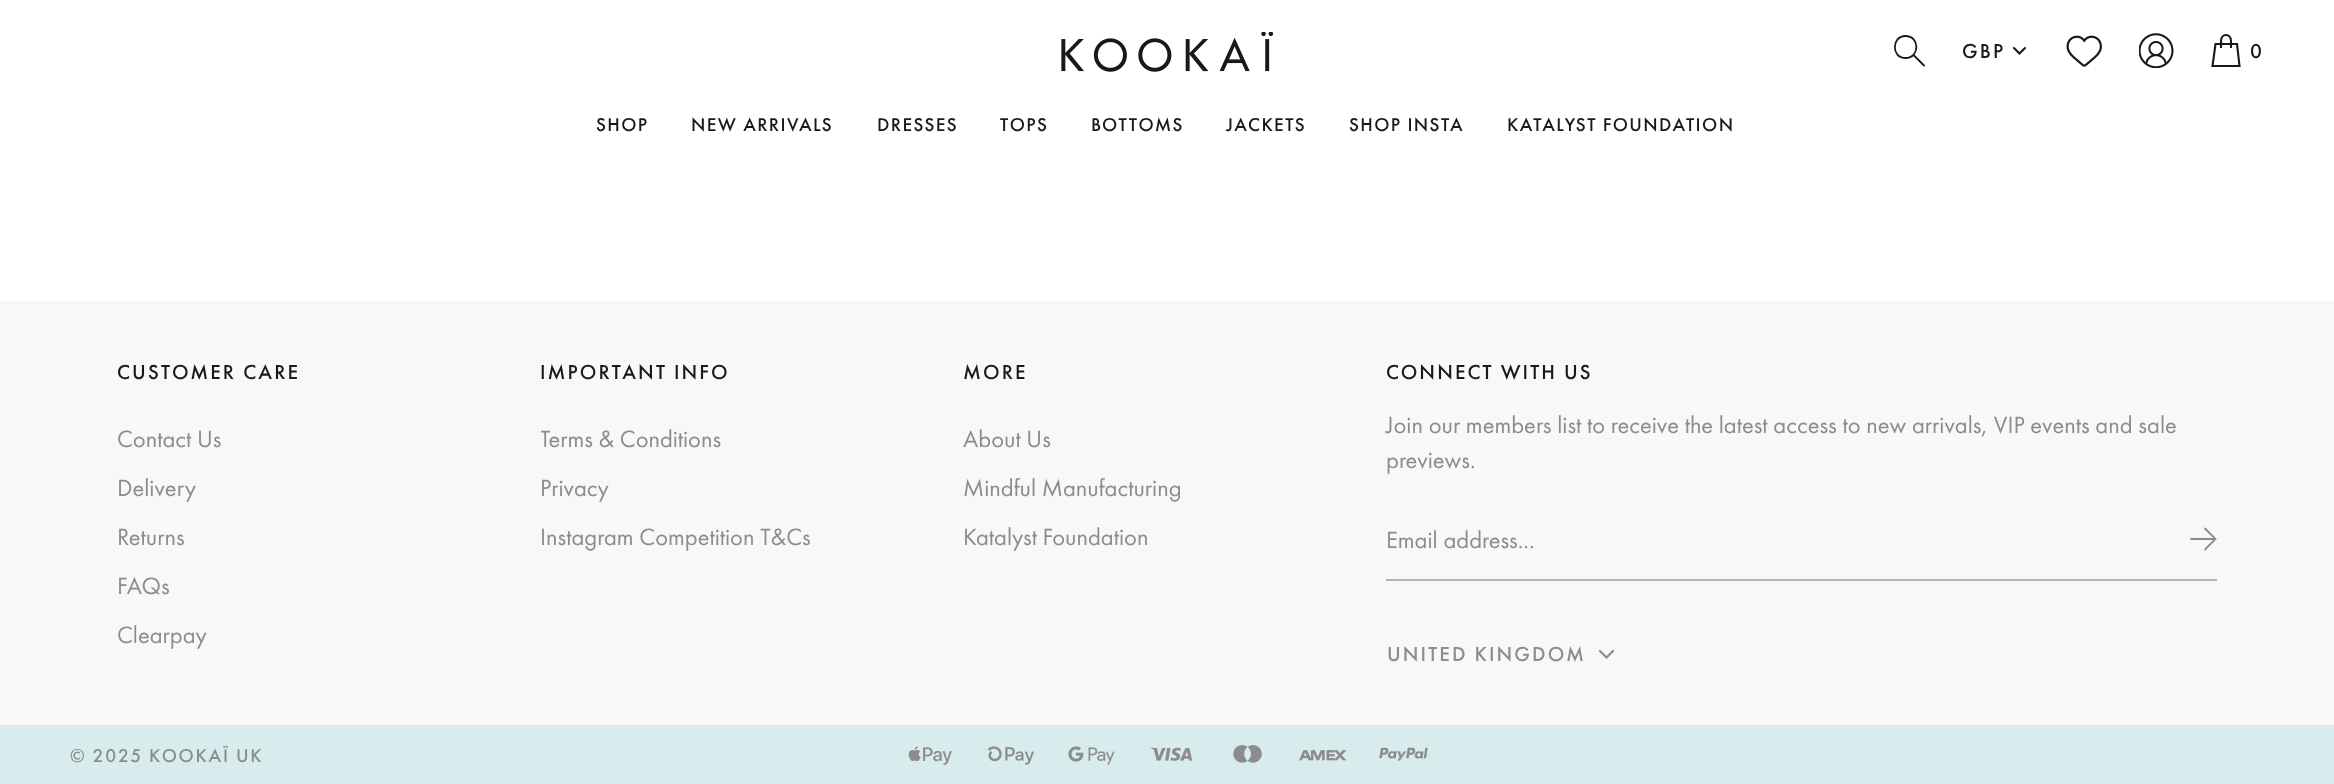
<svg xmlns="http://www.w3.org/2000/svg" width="2334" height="784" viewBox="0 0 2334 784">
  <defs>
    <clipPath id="clip1"><path d="M541 420h408v133H541z"/></clipPath>
  </defs>
  <rect width="100%" height="100%" fill="#fff"/>
  <image x="1061" y="32" width="213" height="40" href="img/1.png"/>
  <path d="M1905.5 58C1920 58 1920 36 1905.5 36C1891.5 36 1891 58 1905.5 58ZM1913.5 55L1924 65.5" fill="none" stroke="#1a1918" stroke-width="1.8" stroke-linecap="round" stroke-linejoin="round"/>
  <path d="M2014 48L2019.5 53.5L2025 48" fill="none" stroke="#1a1918" stroke-width="2.1" stroke-linecap="round"/>
  <image x="2066" y="35" width="36" height="32" href="img/2.png"/>
  <image x="2139" y="33" width="35" height="35" href="img/3.png"/>
  <path d="M2215.5 44H2237L2239.5 66H2212.5ZM2231 48V41C2231 37 2228.5 35 2226 35C2223.5 35 2221 37 2221 41V48" fill="none" stroke="#1a1918" stroke-width="2.1"/>
  <path d="M0 301h2334v424H0z" fill="#f8f8f8"/>
  <path d="M1386 579h831v2H1386z" fill="#b6b3b3"/>
  <path d="M2191 539H2213.5M2205 528.5L2215.5 539L2205 549.5" fill="none" stroke="#8c8c8c" stroke-width="1.8" stroke-linecap="round"/>
  <path d="M1613 651L1606.5 657.5L1600 651" fill="none" stroke="#8c8c8c" stroke-width="2.2" stroke-linecap="round"/>
  <path d="M0 725h2334v59H0z" fill="#d8eced"/>
  <image x="908" y="746" width="44" height="19" href="img/4.png"/>
  <image x="988" y="746" width="46" height="19" href="img/5.png"/>
  <image x="1068" y="746" width="47" height="19" href="img/6.png"/>
  <image x="1150" y="747" width="43" height="14" href="img/7.png"/>
  <image x="1233" y="745" width="29" height="18" href="img/8.png"/>
  <image x="1299" y="750" width="48" height="11" href="img/9.png"/>
  <image x="1379" y="747" width="49" height="14" href="img/10.png"/>
  <g font-family="Futura PT" font-size="21" font-weight="500" letter-spacing="2.1" fill="#1a1918">
    <text x="1962" y="58">GBP</text>
    <text x="2250" y="58">0</text>
  </g>
  <g font-family="Futura PT" font-size="19.25" font-weight="500" letter-spacing="1.4" fill="#1a1918">
    <text x="596" y="131">SHOP</text>
    <text x="691" y="131">NEW ARRIVALS</text>
    <text x="877" y="131">DRESSES</text>
    <text x="1000" y="131">TOPS</text>
    <text x="1091" y="131">BOTTOMS</text>
    <text x="1226" y="131">JACKETS</text>
    <text x="1349" y="131">SHOP INSTA</text>
    <text x="1507" y="131">KATALYST FOUNDATION</text>
  </g>
  <text x="117" y="379" font-family="Futura PT" font-size="21" font-weight="500" letter-spacing="2.1" fill="#1a1918">CUSTOMER CARE</text>
  <g font-family="Futura PT" font-size="24.5" fill="#8c8c8c">
    <text x="117" y="447">Contact Us</text>
    <text x="117" y="496">Delivery</text>
    <text x="117" y="545">Returns</text>
    <text x="117" y="594">FAQs</text>
    <text x="117" y="643">Clearpay</text>
  </g>
  <text x="540" y="379" font-family="Futura PT" font-size="21" font-weight="500" letter-spacing="2.1" fill="#1a1918">IMPORTANT INFO</text>
  <g clip-path="url(#clip1)">
    <text x="540" y="447" font-family="Futura PT" font-size="24.5" fill="#8c8c8c">Terms &amp; Conditions</text>
  </g>
  <g font-family="Futura PT" font-size="24.5" fill="#8c8c8c">
    <text x="540" y="496">Privacy</text>
    <text x="540" y="545">Instagram Competition T&amp;Cs</text>
  </g>
  <text x="963" y="379" font-family="Futura PT" font-size="21" font-weight="500" letter-spacing="2.1" fill="#1a1918">MORE</text>
  <g font-family="Futura PT" font-size="24.5" fill="#8c8c8c">
    <text x="963" y="447">About Us</text>
    <text x="963" y="496">Mindful Manufacturing</text>
    <text x="963" y="545">Katalyst Foundation</text>
  </g>
  <text x="1386" y="379" font-family="Futura PT" font-size="21" font-weight="500" letter-spacing="2.1" fill="#1a1918">CONNECT WITH US</text>
  <g font-family="Futura PT" font-size="24.5" fill="#8c8c8c">
    <text x="1386" y="433">Join our members list to receive the latest access to new arrivals, VIP events and sale</text>
    <text x="1386" y="468">previews.</text>
    <text x="1386" y="548">Email address...</text>
  </g>
  <text x="1387" y="661" font-family="Futura PT" font-size="21" font-weight="500" letter-spacing="2.1" fill="#8c8c8c">UNITED KINGDOM</text>
  <g font-family="Futura PT" font-size="19.25" font-weight="500" letter-spacing="1.75" fill="#8c8c8c">
    <text x="70" y="762">© 2025</text>
    <text x="149" y="762">KOOKAÏ UK</text>
  </g>
</svg>
